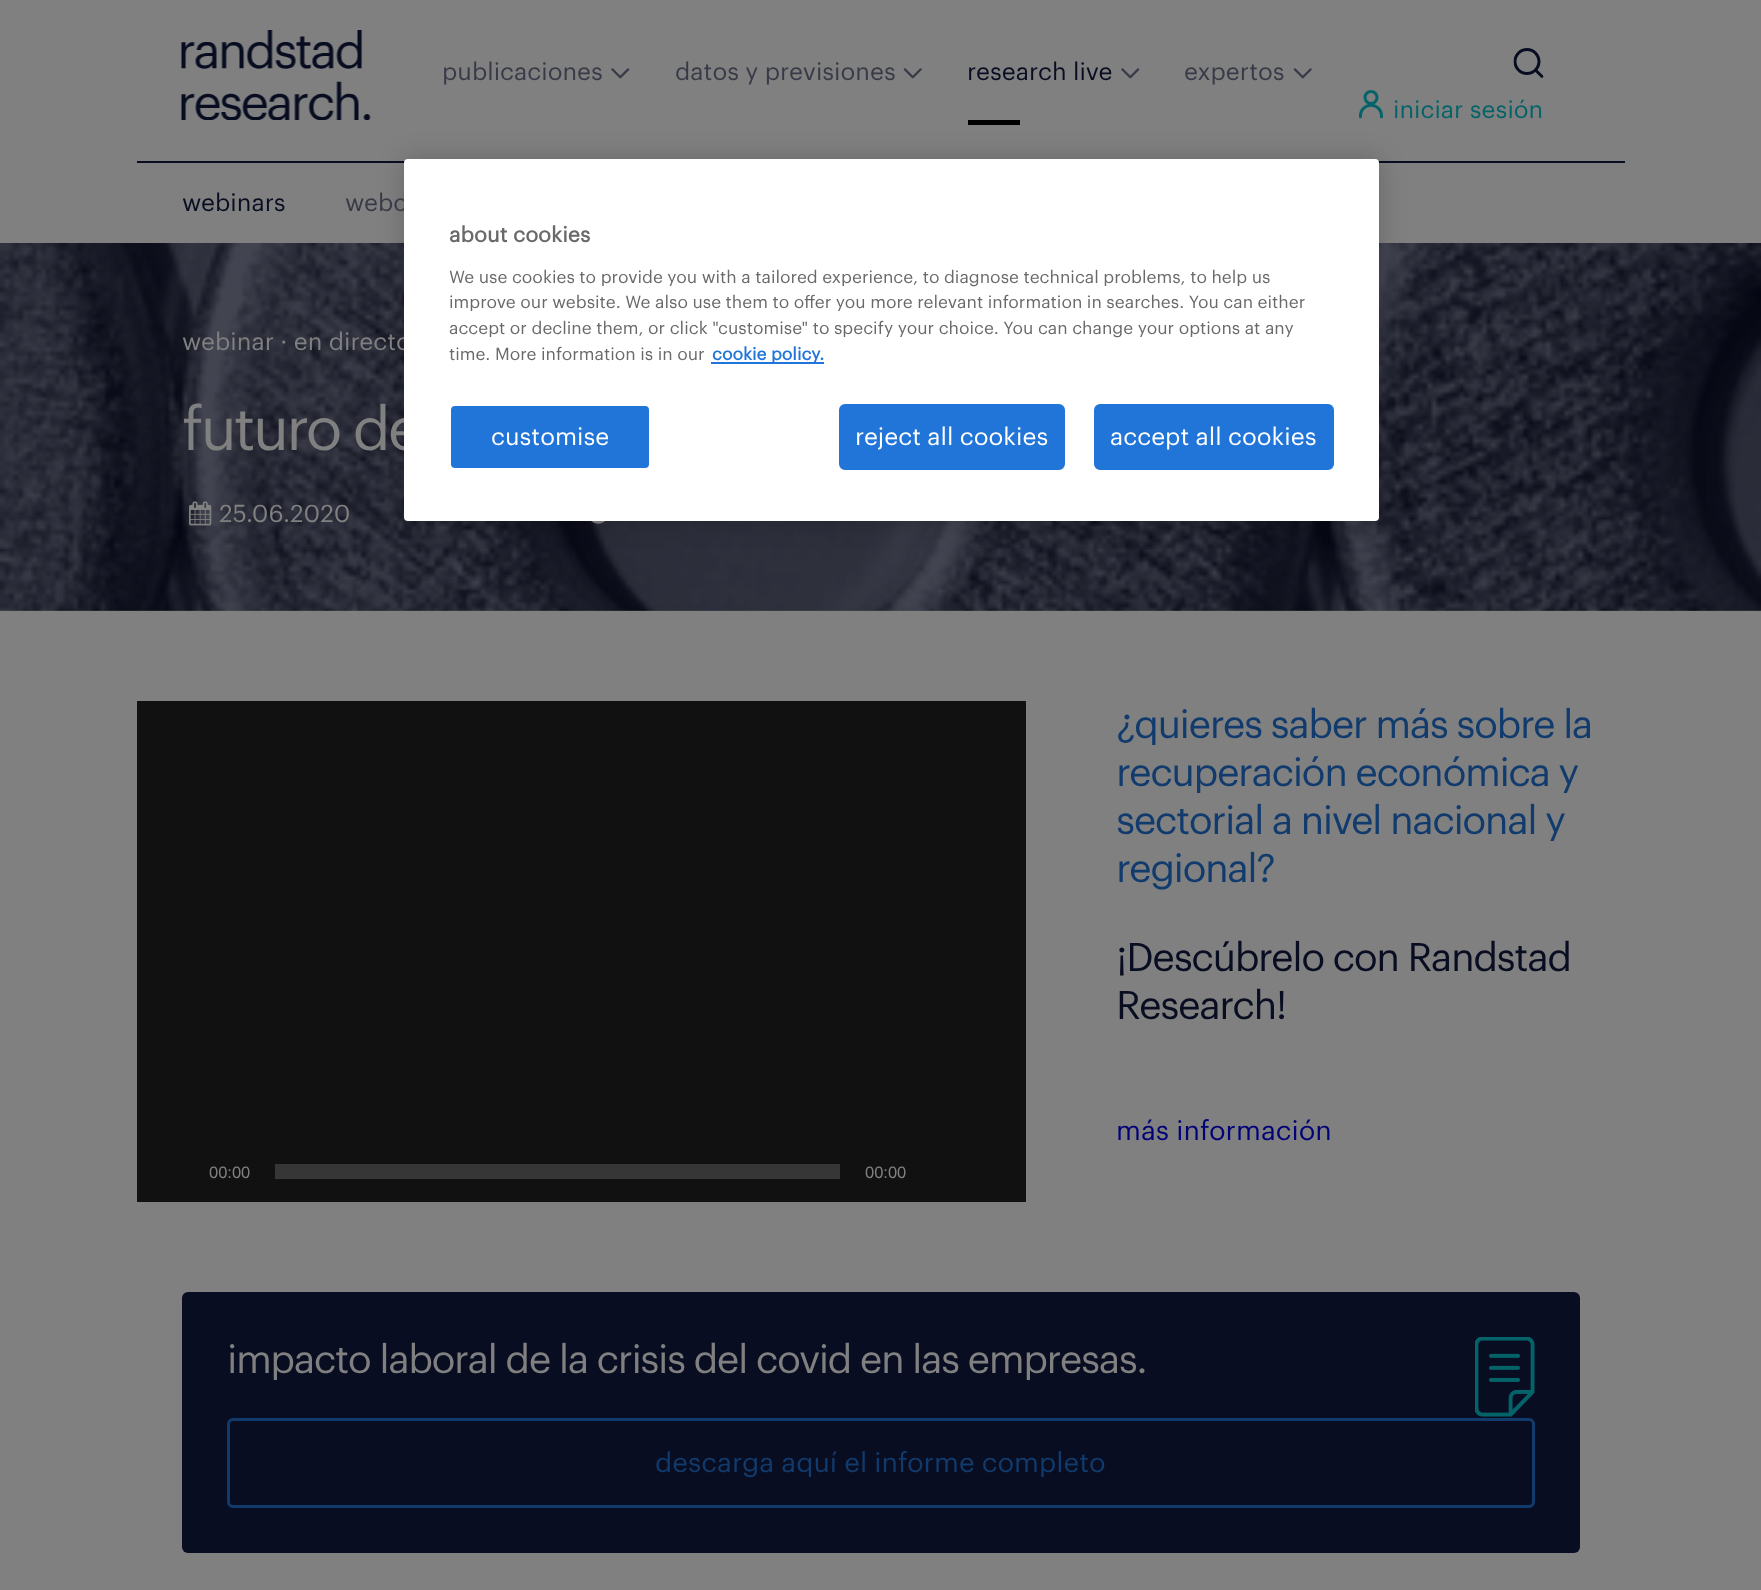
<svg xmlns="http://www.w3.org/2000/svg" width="1761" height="1590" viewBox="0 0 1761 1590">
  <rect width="100%" height="100%" fill="#808080"/>
  <image x="181" y="30" width="190" height="90" href="img/1.png"/>
  <image x="611" y="68" width="19" height="11" href="img/2.png"/>
  <image x="903" y="68" width="19" height="11" href="img/3.png"/>
  <image x="1121" y="68" width="19" height="11" href="img/2.png"/>
  <path d="M968 120h52v5H968z" fill="#000"/>
  <image x="1293" y="68" width="19" height="11" href="img/3.png"/>
  <image x="1513" y="48" width="31" height="30" href="img/4.png"/>
  <image x="1359" y="90" width="24" height="29" href="img/5.png"/>
  <path d="M137 161h1488v2H137z" fill="#080d21"/>
  <image x="0" y="243" width="1761" height="368" href="img/6.png"/>
  <image x="189" y="501" width="23" height="25" href="img/7.png"/>
  <image x="591" y="521" width="14" height="3" href="img/8.png"/>
  <image x="0" y="606" width="1761" height="5" href="img/9.png"/>
  <path d="M137 701h889v501H137z" fill="#111"/>
  <path d="M275 1164h565v15H275z" fill="#363636"/>
  <rect x="182" y="1292" width="1398" height="261" rx="6" fill="#080d21"/>
  <image x="1475" y="1337" width="60" height="80" href="img/10.png"/>
  <rect x="228.5" y="1419.5" width="1305" height="87" rx="4.5" fill="none" stroke="#113b6d" stroke-width="3"/>
  <rect x="404" y="159" width="975" height="362" rx="4" fill="#00000033" filter="blur(13.5px)"/>
  <g font-family="Graphik" font-size="24" fill="#383b47">
    <text x="442" y="80">publicaciones</text>
    <text x="675" y="80">datos y previsiones</text>
  </g>
  <text x="967" y="80" font-family="Graphik" font-size="24" fill="#080d21">research live</text>
  <text x="1184" y="80" font-family="Graphik" font-size="24" fill="#383b47">expertos</text>
  <text x="1393" y="118" font-family="Graphik" font-size="24" fill="#046369">iniciar sesión</text>
  <text x="182" y="211" font-family="Graphik" font-size="24" fill="#080d21">webinars</text>
  <text x="345" y="211" font-family="Graphik" font-size="24" fill="#383b47">webc</text>
  <text x="182" y="350" font-family="Graphik" font-size="24" fill="#808080">webinar · en directo</text>
  <text x="182" y="450" font-family="Graphik" font-size="60" letter-spacing="-3" fill="#808080">futuro de</text>
  <text x="219" y="522" font-family="Graphik" font-size="24" fill="#808080">25.06.2020</text>
  <g font-family="Graphik" font-size="39" letter-spacing="-1.5" fill="#113b6d">
    <text x="1116" y="738">¿quieres saber más sobre la</text>
    <text x="1116" y="786">recuperación económica y</text>
    <text x="1116" y="834">sectorial a nivel nacional y</text>
    <text x="1116" y="882">regional?</text>
  </g>
  <g font-family="Graphik" font-size="39" letter-spacing="-1.5" fill="#080d21">
    <text x="1116" y="971">¡Descúbrelo con Randstad</text>
    <text x="1116" y="1019">Research!</text>
  </g>
  <text x="1116" y="1140" font-family="Graphik" font-size="27" fill="#007">más información</text>
  <g font-family="Liberation Sans" font-size="16.5" fill="#808080">
    <text x="209" y="1178">00:00</text>
    <text x="865" y="1178">00:00</text>
  </g>
  <text x="227" y="1373" font-family="Graphik" font-size="39" letter-spacing="-1.5" fill="#808080">impacto laboral de la crisis del covid en las empresas.</text>
  <text x="655" y="1472" font-family="Graphik" font-size="27" fill="#113b6d">descarga aquí el informe completo</text>
  <rect x="404" y="159" width="975" height="362" rx="4" fill="#fff"/>
  <text x="449" y="242" font-family="Graphik" font-size="21" font-weight="bold" fill="#696969">about cookies</text>
  <g font-family="Graphik" font-size="17.07" fill="#696969">
    <text x="449" y="283">We use cookies to provide you with a tailored experience, to diagnose technical problems, to help us</text>
    <text x="449" y="308">improve our website. We also use them to offer you more relevant information in searches. You can either</text>
    <text x="449" y="334">accept or decline them, or click "customise" to specify your choice. You can change your options at any</text>
    <text x="449" y="360">time. More information is in our</text>
  </g>
  <path d="M711 362h113v2H711z" fill="#2175d9"/>
  <text x="712" y="360" font-family="Graphik" font-size="17.07" font-weight="bold" fill="#2175d9">cookie policy.</text>
  <rect x="450" y="405" width="200" height="64" rx="5" fill="#2175d9" stroke="#fff" stroke-width="2"/>
  <text x="491" y="445" font-family="Graphik" font-size="24" fill="#fff">customise</text>
  <rect x="840" y="405" width="224" height="64" rx="5" fill="#2175d9" stroke="#2175d9" stroke-width="2"/>
  <text x="855" y="445" font-family="Graphik" font-size="24" fill="#fff">reject all cookies</text>
  <rect x="1095" y="405" width="238" height="64" rx="5" fill="#2175d9" stroke="#2175d9" stroke-width="2"/>
  <text x="1110" y="445" font-family="Graphik" font-size="24" fill="#fff">accept all cookies</text>
</svg>
